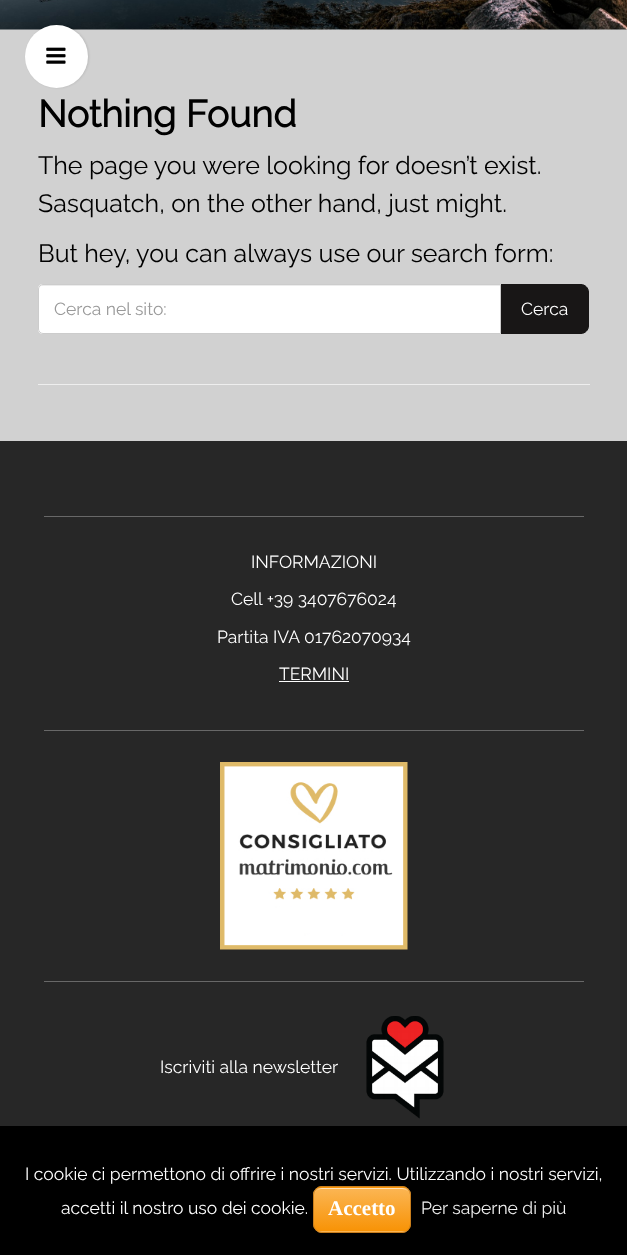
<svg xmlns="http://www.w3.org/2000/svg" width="627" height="1255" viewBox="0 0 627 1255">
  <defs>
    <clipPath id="clip1"><rect x="313" y="1186" width="98" height="47" rx="9"/></clipPath>
    <linearGradient id="g1" gradientUnits="userSpaceOnUse" x1="362" y1="1144" x2="362" y2="1188"><stop offset="0.05" stop-color="#fbb450"/><stop offset="1" stop-color="#f89306"/></linearGradient>
    <linearGradient id="g2" gradientUnits="userSpaceOnUse" x1="362" y1="1188" x2="362" y2="1231"><stop offset="0.05" stop-color="#fbb450"/><stop offset="1" stop-color="#f89306"/></linearGradient>
    <linearGradient id="g3" gradientUnits="userSpaceOnUse" x1="362" y1="1231" x2="362" y2="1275"><stop offset="0.05" stop-color="#fbb450"/><stop offset="1" stop-color="#f89306"/></linearGradient>
  </defs>
  <rect width="100%" height="100%" fill="#d1d1d1"/>
  <image x="0" y="0" width="627" height="30" href="img/1.png"/>
  <rect x="26" y="25" width="63" height="63" rx="31.5" fill="#0000001a" filter="blur(1px)"/>
  <circle cx="56.5" cy="56.5" r="31.5" fill="#fff"/>
  <image x="46" y="47" width="20" height="17" href="img/2.png"/>
  <path d="M38 384h552v1H38z" fill="#eee"/>
  <path d="M500.5 284.5H581C585 284.5 588.5 288 588.5 292V326C588.5 330 585 333.5 581 333.5H500.5Z" fill="#181616" stroke="#181616"/>
  <path d="M43 284H501V334H43C40 334 38 332 38 329V289C38 286 40 284 43 284Z" fill="#fff"/>
  <path d="M42 286H500V285H43C41 285 39 287 39 289V290C39 288 40 286 42 286Z" fill="#ececec"/>
  <path d="M43 284.5H500.5V333.5H43C40.5 333.5 38.5 331.5 38.5 329V289C38.5 286.5 40.5 284.5 43 284.5Z" fill="none" stroke="#ccc"/>
  <path d="M0 441h627v685H0z" fill="#272727"/>
  <path d="M44 516h540v1H44z" fill="#686868"/>
  <path d="M44 730h540v1H44z" fill="#686868"/>
  <path d="M279 681h70v1H279z" fill="#fff"/>
  <path d="M44 981h540v1H44z" fill="#686868"/>
  <image x="220" y="762" width="188" height="188" href="img/3.png"/>
  <image x="366" y="1016" width="78" height="103" href="img/4.png"/>
  <path d="M0 1126h627v129H0z" fill="#000"/>
  <g clip-path="url(#clip1)">
    <path d="M313 1186h98v2H313z" fill="url(#g1)"/>
    <path d="M313 1188h98v43H313z" fill="url(#g2)"/>
    <path d="M313 1231h98v2H313z" fill="url(#g3)"/>
  </g>
  <path d="M321 1189H402C407 1189 410 1192 410 1196C410 1192 406 1188 402 1188H322C318 1188 314 1192 314 1196C314 1192 317 1189 321 1189Z" fill="#ffe0b5"/>
  <rect x="313.5" y="1186.5" width="97" height="46" rx="8.5" fill="none" stroke="#c97e1c"/>
  <text x="38" y="127" font-family="Raleway" font-size="37.5" font-weight="bold" fill="#000">Nothing Found</text>
  <g font-family="Raleway" font-size="25" font-weight="100" fill="#000">
    <text x="38" y="174">The page you were looking for doesn’t exist.</text>
    <text x="38" y="212">Sasquatch, on the other hand, just might.</text>
    <text x="38" y="262">But hey, you can always use our search form:</text>
  </g>
  <text x="54" y="315" font-family="Raleway" font-size="17.5" font-weight="100" fill="#999">Cerca nel sito:</text>
  <g font-family="Raleway" font-size="17.5" font-weight="100" fill="#fff">
    <text x="521" y="315">Cerca</text>
    <text x="251" y="568">INFORMAZIONI</text>
    <text x="231" y="605">Cell +39 3407676024</text>
    <text x="217" y="643">Partita IVA 01762070934</text>
    <text x="279" y="680">TERMINI</text>
    <text x="160" y="1073">Iscriviti alla newsletter</text>
    <text x="25" y="1180">I cookie ci permettono di offrire i nostri servizi. Utilizzando i nostri servizi,</text>
    <text x="61" y="1214">accetti il nostro uso dei cookie.</text>
  </g>
  <text x="328" y="1215" font-family="Liberation Serif" font-size="21" font-weight="bold" fill="#fff">Accetto</text>
  <text x="421" y="1214" font-family="Raleway" font-size="17.5" font-weight="100" fill="#eee">Per saperne di più</text>
</svg>
